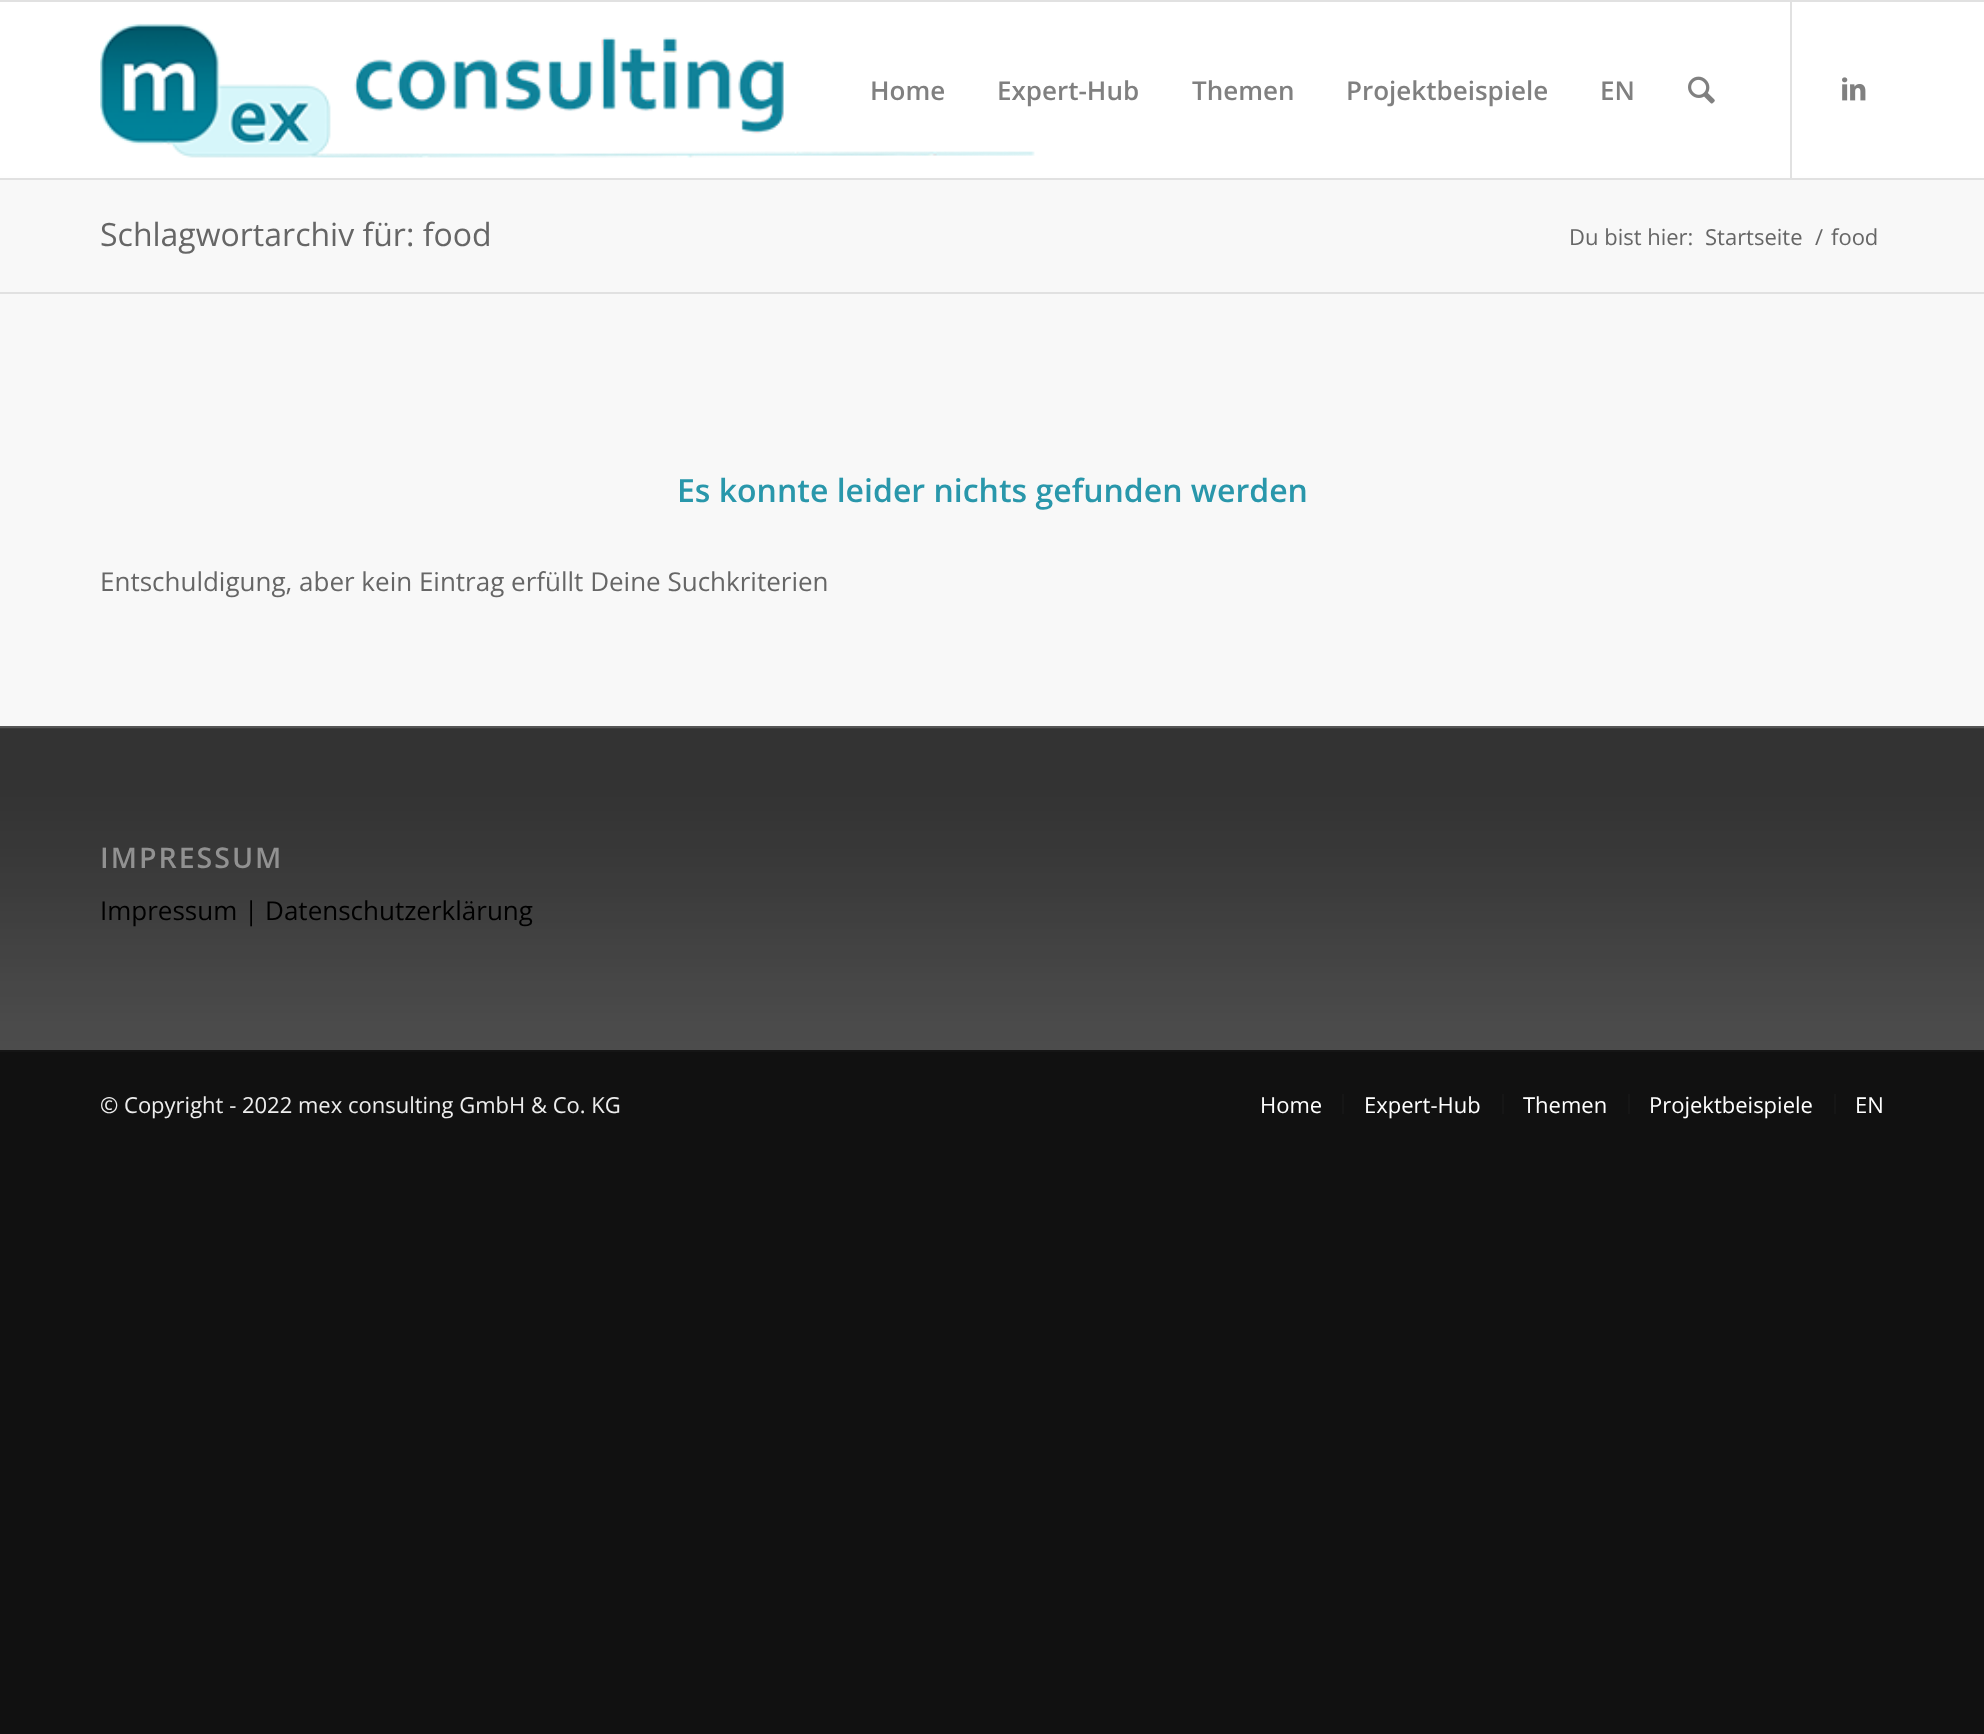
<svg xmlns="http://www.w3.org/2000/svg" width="1984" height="1734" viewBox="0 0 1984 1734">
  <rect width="100%" height="100%" fill="#111"/>
  <path d="M0 0h1984v2H0z" fill="#e1e1e1"/>
  <path d="M0 178h1984v2H0z" fill="#e1e1e1"/>
  <path d="M0 2h1984v174H0z" fill="#fff"/>
  <image x="100" y="23" width="935" height="135" href="img/1.png"/>
  <path d="M0 176h1984v2H0z" fill="#fefefe"/>
  <path d="M1790 2h2v176H1790z" fill="#e1e1e1"/>
  <image x="1688" y="76" width="27" height="28" href="img/2.png"/>
  <image x="1842" y="77" width="24" height="24" href="img/3.png"/>
  <path d="M0 180h1984v112H0z" fill="#f8f8f8"/>
  <path d="M0 294h1984v432H0z" fill="#f8f8f8"/>
  <path d="M0 292h1984v2H0z" fill="#e1e1e1"/>
  <path d="M0 728h1984v322H0z" fill="#333"/>
  <image x="0" y="728" width="1984" height="322" href="img/4.png"/>
  <path d="M0 726h1984v2H0z" fill="#555"/>
  <path d="M0 1050h1984v2H0z" fill="#161616"/>
  <path d="M1342 1094h2v20H1342z" fill="#161616"/>
  <path d="M1502 1094h2v20H1502z" fill="#161616"/>
  <path d="M1628 1094h2v20H1628z" fill="#161616"/>
  <path d="M1834 1094h2v20H1834z" fill="#161616"/>
  <g font-family="Open Sans" font-size="26" font-weight="600" fill="#808080">
    <text x="870" y="100">Home</text>
    <text x="997" y="100">Expert-Hub</text>
    <text x="1192" y="100">Themen</text>
    <text x="1346" y="100">Projektbeispiele</text>
    <text x="1600" y="100">EN</text>
  </g>
  <text x="100" y="246" font-family="Open Sans" font-size="32" fill="#666">Schlagwortarchiv für: food</text>
  <g font-family="Open Sans" font-size="22" fill="#666">
    <text x="1569" y="245">Du bist hier:</text>
    <text x="1705" y="245">Startseite</text>
    <text x="1815" y="245">/</text>
    <text x="1831" y="245">food</text>
  </g>
  <text x="677" y="502" font-family="Open Sans" font-size="32" font-weight="600" fill="#2997ab">Es konnte leider nichts gefunden werden</text>
  <text x="100" y="591" font-family="Open Sans" font-size="26" fill="#666">Entschuldigung, aber kein Eintrag erfüllt Deine Suchkriterien</text>
  <text x="100" y="868" font-family="Open Sans" font-size="28.5" font-weight="600" letter-spacing="2" fill="#919191">IMPRESSUM</text>
  <text x="100" y="920" font-family="Open Sans" font-size="26" fill="#000">Impressum | Datenschutzerklärung</text>
  <text x="100" y="1113" font-family="Open Sans" font-size="22" fill="#eee">© Copyright - 2022 mex consulting GmbH &amp; Co. KG</text>
  <g font-family="Open Sans" font-size="22" fill="#fff">
    <text x="1260" y="1113">Home</text>
    <text x="1364" y="1113">Expert-Hub</text>
    <text x="1523" y="1113">Themen</text>
    <text x="1649" y="1113">Projektbeispiele</text>
    <text x="1855" y="1113">EN</text>
  </g>
</svg>
